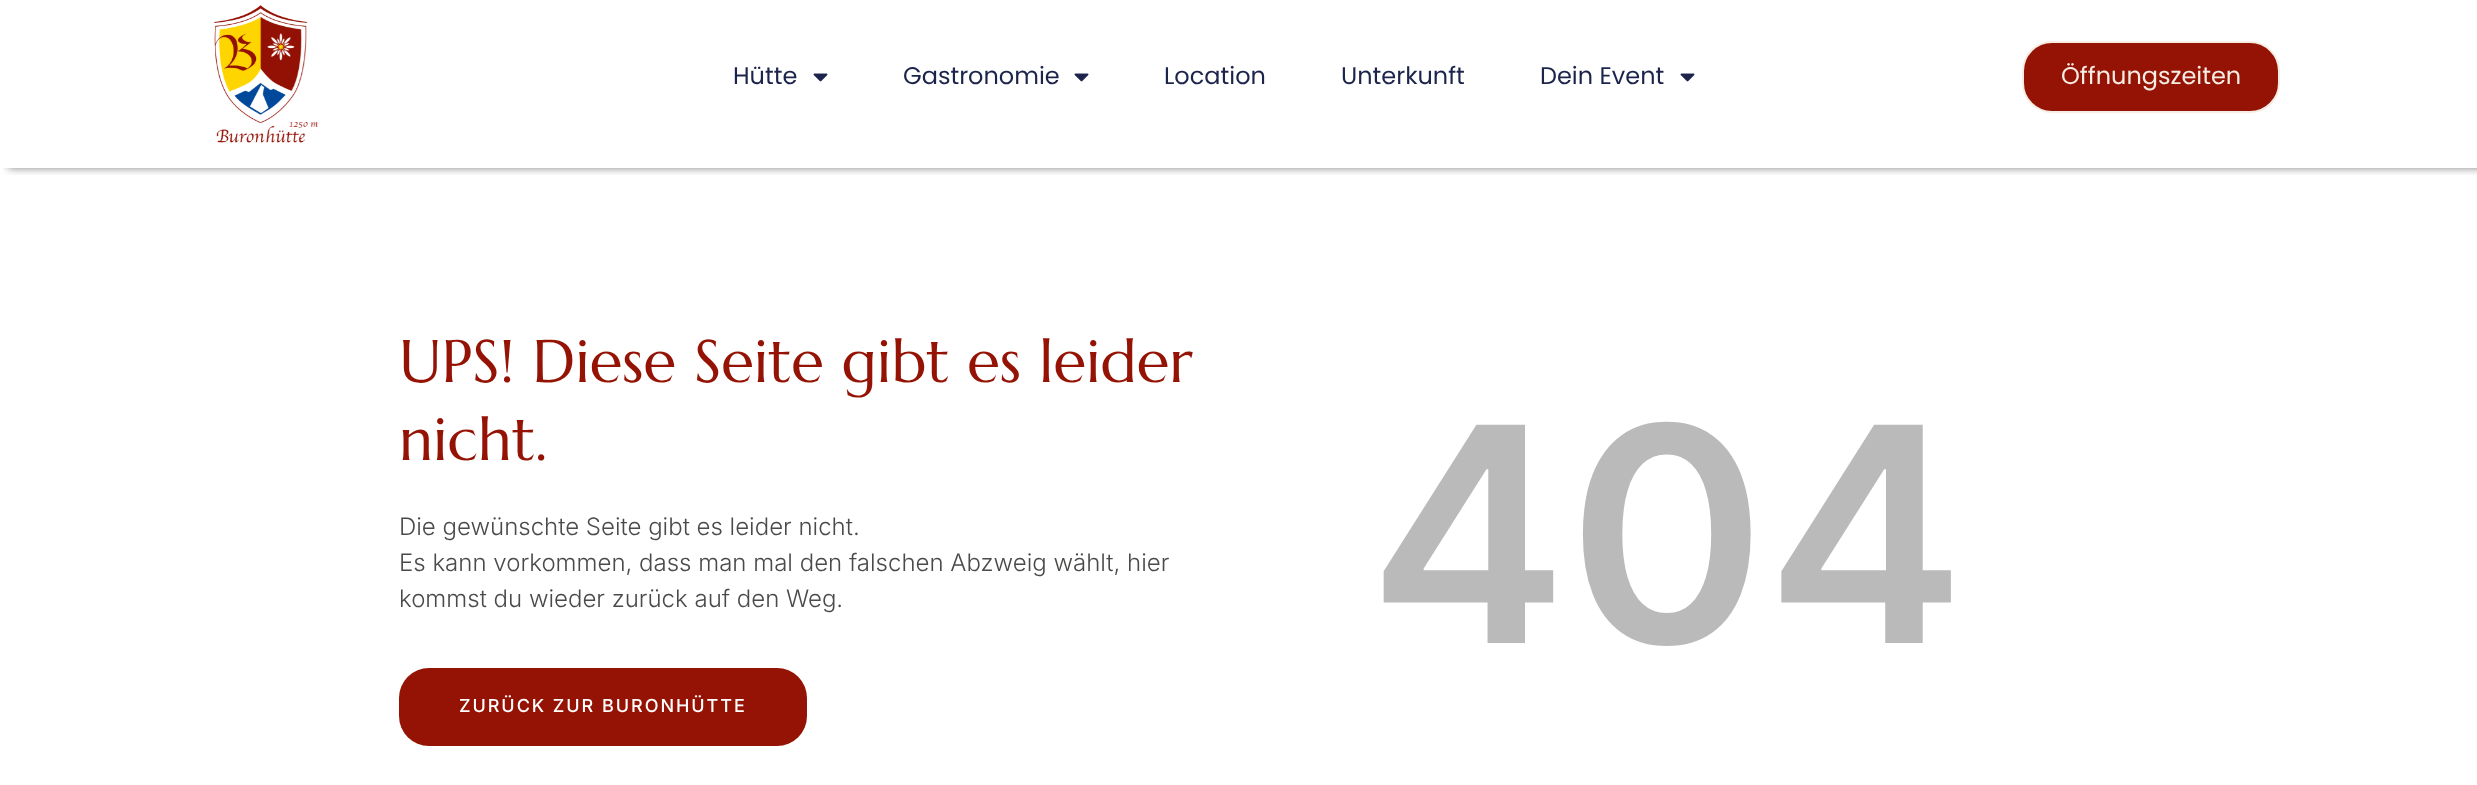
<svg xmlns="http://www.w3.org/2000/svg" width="2477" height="785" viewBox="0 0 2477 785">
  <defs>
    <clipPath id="clip1"><path d="M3 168h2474v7H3z"/></clipPath>
  </defs>
  <rect width="100%" height="100%" fill="#fff"/>
  <g clip-path="url(#clip1)">
    <path d="M8 0h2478v168H8z" fill="#00000080" filter="blur(4px)"/>
  </g>
  <image x="214" y="5" width="104" height="138" href="img/1.png"/>
  <image x="813" y="73" width="15" height="9" href="img/2.png"/>
  <image x="1074" y="73" width="15" height="9" href="img/2.png"/>
  <image x="1680" y="73" width="15" height="9" href="img/2.png"/>
  <rect x="2023" y="42" width="256" height="70" rx="29" fill="#941304" stroke="#f5ede4" stroke-width="2"/>
  <rect x="399" y="668" width="408" height="78" rx="30" fill="#941304"/>
  <g font-family="Poppins" font-size="24" fill="#1c244b">
    <text x="733" y="84">Hütte</text>
    <text x="903" y="84">Gastronomie</text>
    <text x="1164" y="84">Location</text>
    <text x="1341" y="84">Unterkunft</text>
    <text x="1540" y="84">Dein Event</text>
  </g>
  <text x="2061" y="84" font-family="Poppins" font-size="24" fill="#f5ede4">Öffnungszeiten</text>
  <g font-family="Marcellus" font-size="60" fill="#941304">
    <text x="399" y="382">UPS! Diese Seite gibt es leider</text>
    <text x="399" y="460">nicht.</text>
  </g>
  <g font-family="Inter" font-size="24" font-weight="300" fill="#4a4a49">
    <text x="399" y="535">Die gewünschte Seite gibt es leider nicht.</text>
    <text x="399" y="571">Es kann vorkommen, dass man mal den falschen Abzweig wählt, hier</text>
    <text x="399" y="607">kommst du wieder zurück auf den Weg.</text>
  </g>
  <text x="459" y="712" font-family="Inter" font-size="18" font-weight="500" letter-spacing="1.95" fill="#fff">ZURÜCK ZUR BURONHÜTTE</text>
  <text x="1368" y="643" font-family="Inter" font-size="300" font-weight="600" fill="#bababa">404</text>
</svg>
